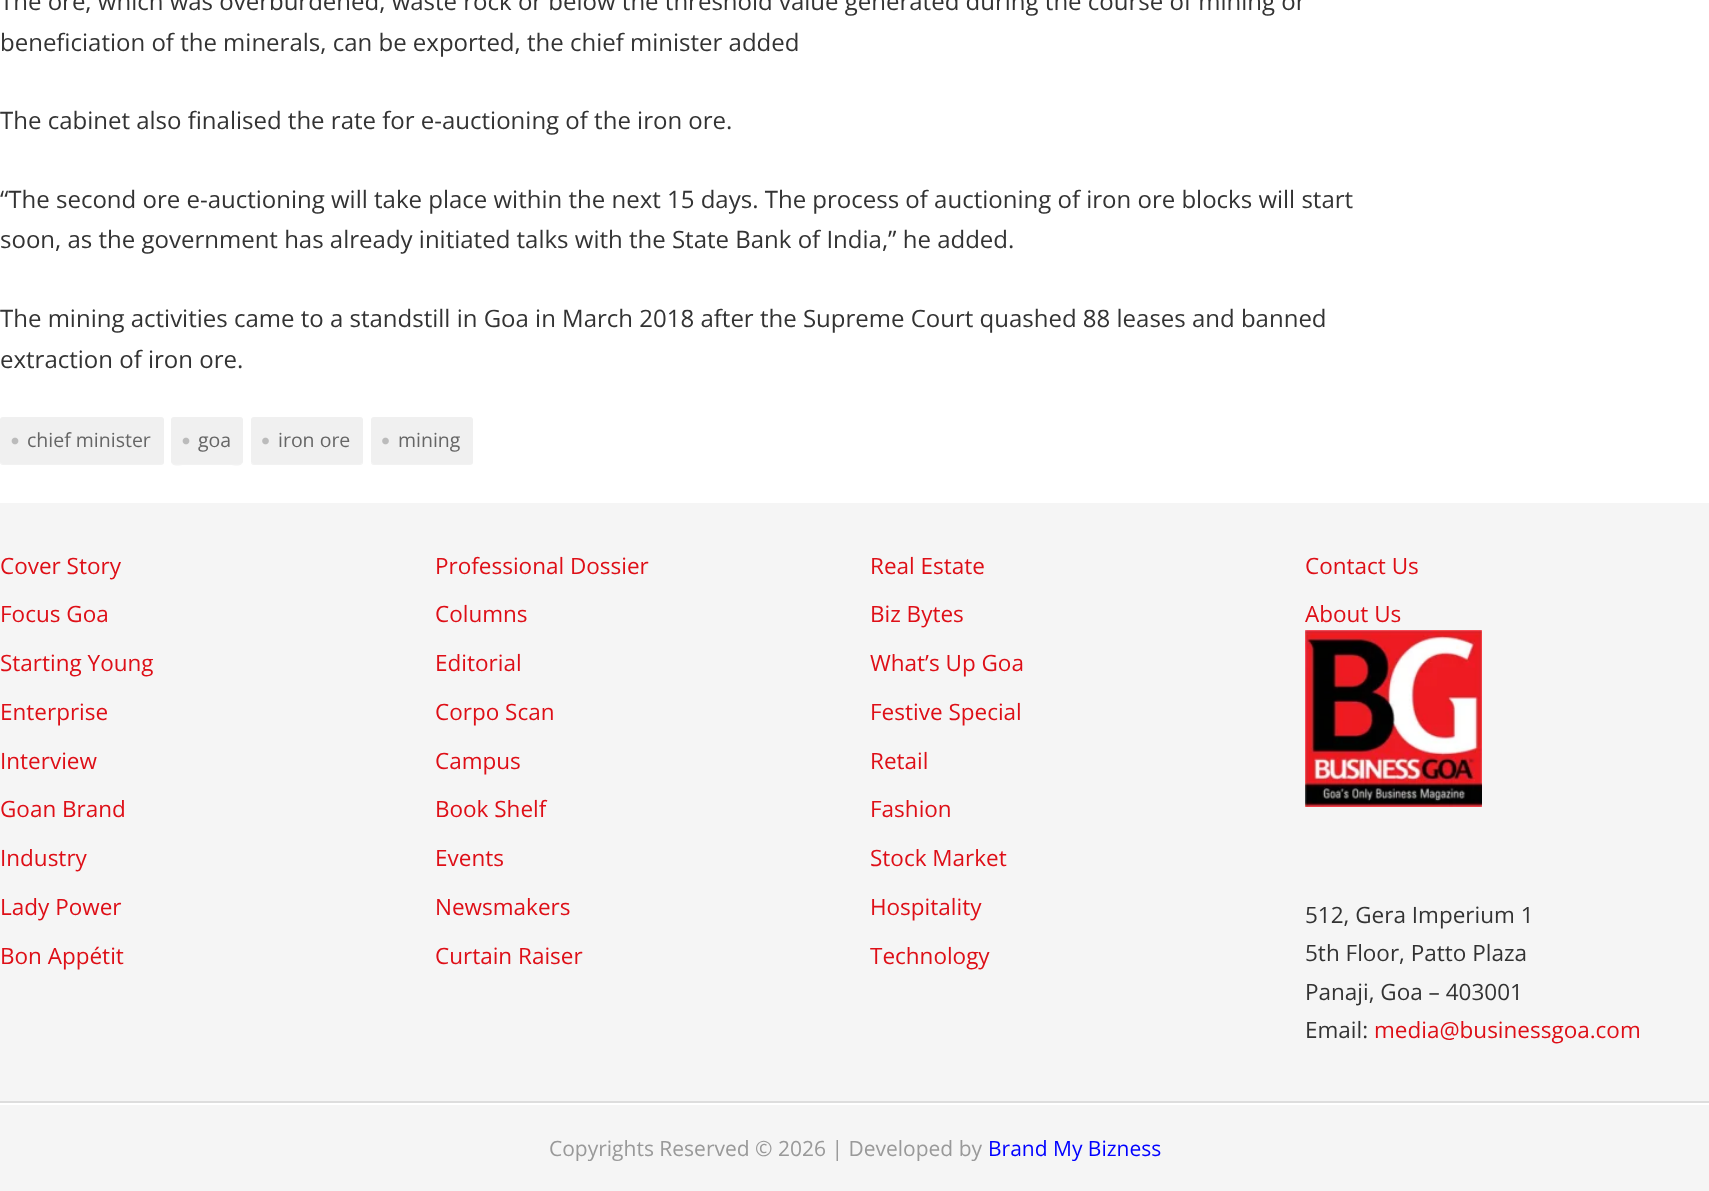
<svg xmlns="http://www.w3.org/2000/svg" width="1709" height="1191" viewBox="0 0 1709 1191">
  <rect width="100%" height="100%" fill="#fff"/>
  <path d="M0 460V462C0 464 1 465 3 465H161C163 465 164 464 164 462V422V420V460C164 462 162 464 160 464H3C1 464 0 462 0 460Z" fill="#f2f2f2"/>
  <rect y="417" width="164" height="47" rx="3" fill="#f0f0f0"/>
  <image x="11" y="437" width="8" height="8" href="img/1.png"/>
  <path d="M171 460C171 468 179 465 185 465H229C235 465 243 468 243 460C243 462 242 464 240 464H174C172 464 171 462 171 460Z" fill="#f2f2f2"/>
  <rect x="171" y="417" width="72" height="47" rx="3" fill="#f0f0f0"/>
  <image x="182" y="437" width="8" height="8" href="img/1.png"/>
  <path d="M251 462C251 464 252 465 254 465H360C362 465 363 464 363 462V460C363 462 362 464 360 464H254C252 464 252 463 251 462Z" fill="#f2f2f2"/>
  <rect x="251" y="417" width="112" height="47" rx="3" fill="#f0f0f0"/>
  <image x="262" y="437" width="7" height="8" href="img/2.png"/>
  <path d="M371 462C371 464 372 465 374 465H470C472 465 473 464 473 462V422L472 420V460C472 462 471 464 470 464H374C372 464 372 463 371 462Z" fill="#f2f2f2"/>
  <rect x="371" y="417" width="102" height="47" rx="3" fill="#f0f0f0"/>
  <image x="382" y="437" width="7" height="8" href="img/2.png"/>
  <path d="M0 503h1709v688H0z" fill="#f5f5f5"/>
  <path d="M0 1101h1709v2H0z" fill="#ddd"/>
  <image x="1305" y="630" width="177" height="177" href="img/3.png"/>
  <path d="M0 1103h1709v2H0z" fill="#fff"/>
  <g font-family="Open Sans" font-size="24" fill="#333">
    <text x="0" y="10">The ore, which was overburdened, waste rock or below the threshold value generated during the course of mining or</text>
    <text x="0" y="51">beneficiation of the minerals, can be exported, the chief minister added</text>
    <text x="0" y="129">The cabinet also finalised the rate for e-auctioning of the iron ore.</text>
    <text x="0" y="208">“The second ore e-auctioning will take place within the next 15 days. The process of auctioning of iron ore blocks will start</text>
    <text x="0" y="248">soon, as the government has already initiated talks with the State Bank of India,” he added.</text>
    <text x="0" y="327">The mining activities came to a standstill in Goa in March 2018 after the Supreme Court quashed 88 leases and banned</text>
    <text x="0" y="368">extraction of iron ore.</text>
  </g>
  <g font-family="Open Sans" font-size="19.5" fill="#666">
    <text x="27" y="447">chief minister</text>
    <text x="198" y="447">goa</text>
    <text x="278" y="447">iron ore</text>
    <text x="398" y="447">mining</text>
  </g>
  <g font-family="Open Sans" font-size="22.5" fill="#de0f17">
    <text x="0" y="574">Cover Story</text>
    <text x="0" y="622">Focus Goa</text>
    <text x="0" y="671">Starting Young</text>
    <text x="0" y="720">Enterprise</text>
    <text x="0" y="769">Interview</text>
    <text x="0" y="817">Goan Brand</text>
    <text x="0" y="866">Industry</text>
    <text x="0" y="915">Lady Power</text>
    <text x="0" y="964">Bon Appétit</text>
    <text x="435" y="574">Professional Dossier</text>
    <text x="435" y="622">Columns</text>
    <text x="435" y="671">Editorial</text>
    <text x="435" y="720">Corpo Scan</text>
    <text x="435" y="769">Campus</text>
    <text x="435" y="817">Book Shelf</text>
    <text x="435" y="866">Events</text>
    <text x="435" y="915">Newsmakers</text>
    <text x="435" y="964">Curtain Raiser</text>
    <text x="870" y="574">Real Estate</text>
    <text x="870" y="622">Biz Bytes</text>
    <text x="870" y="671">What’s Up Goa</text>
    <text x="870" y="720">Festive Special</text>
    <text x="870" y="769">Retail</text>
    <text x="870" y="817">Fashion</text>
    <text x="870" y="866">Stock Market</text>
    <text x="870" y="915">Hospitality</text>
    <text x="870" y="964">Technology</text>
    <text x="1305" y="574">Contact Us</text>
    <text x="1305" y="622">About Us</text>
  </g>
  <g font-family="Open Sans" font-size="22.5" fill="#333">
    <text x="1305" y="923">512, Gera Imperium 1</text>
    <text x="1305" y="961">5th Floor, Patto Plaza</text>
    <text x="1305" y="1000">Panaji, Goa – 403001</text>
    <text x="1305" y="1038">Email:</text>
  </g>
  <text x="1374" y="1038" font-family="Open Sans" font-size="22.5" fill="#de0f17">media@businessgoa.com</text>
  <text x="549" y="1156" font-family="Open Sans" font-size="21" fill="#999">Copyrights Reserved © 2026 | Developed by</text>
  <text x="988" y="1156" font-family="Open Sans" font-size="21" fill="#00f">Brand My Bizness</text>
</svg>
